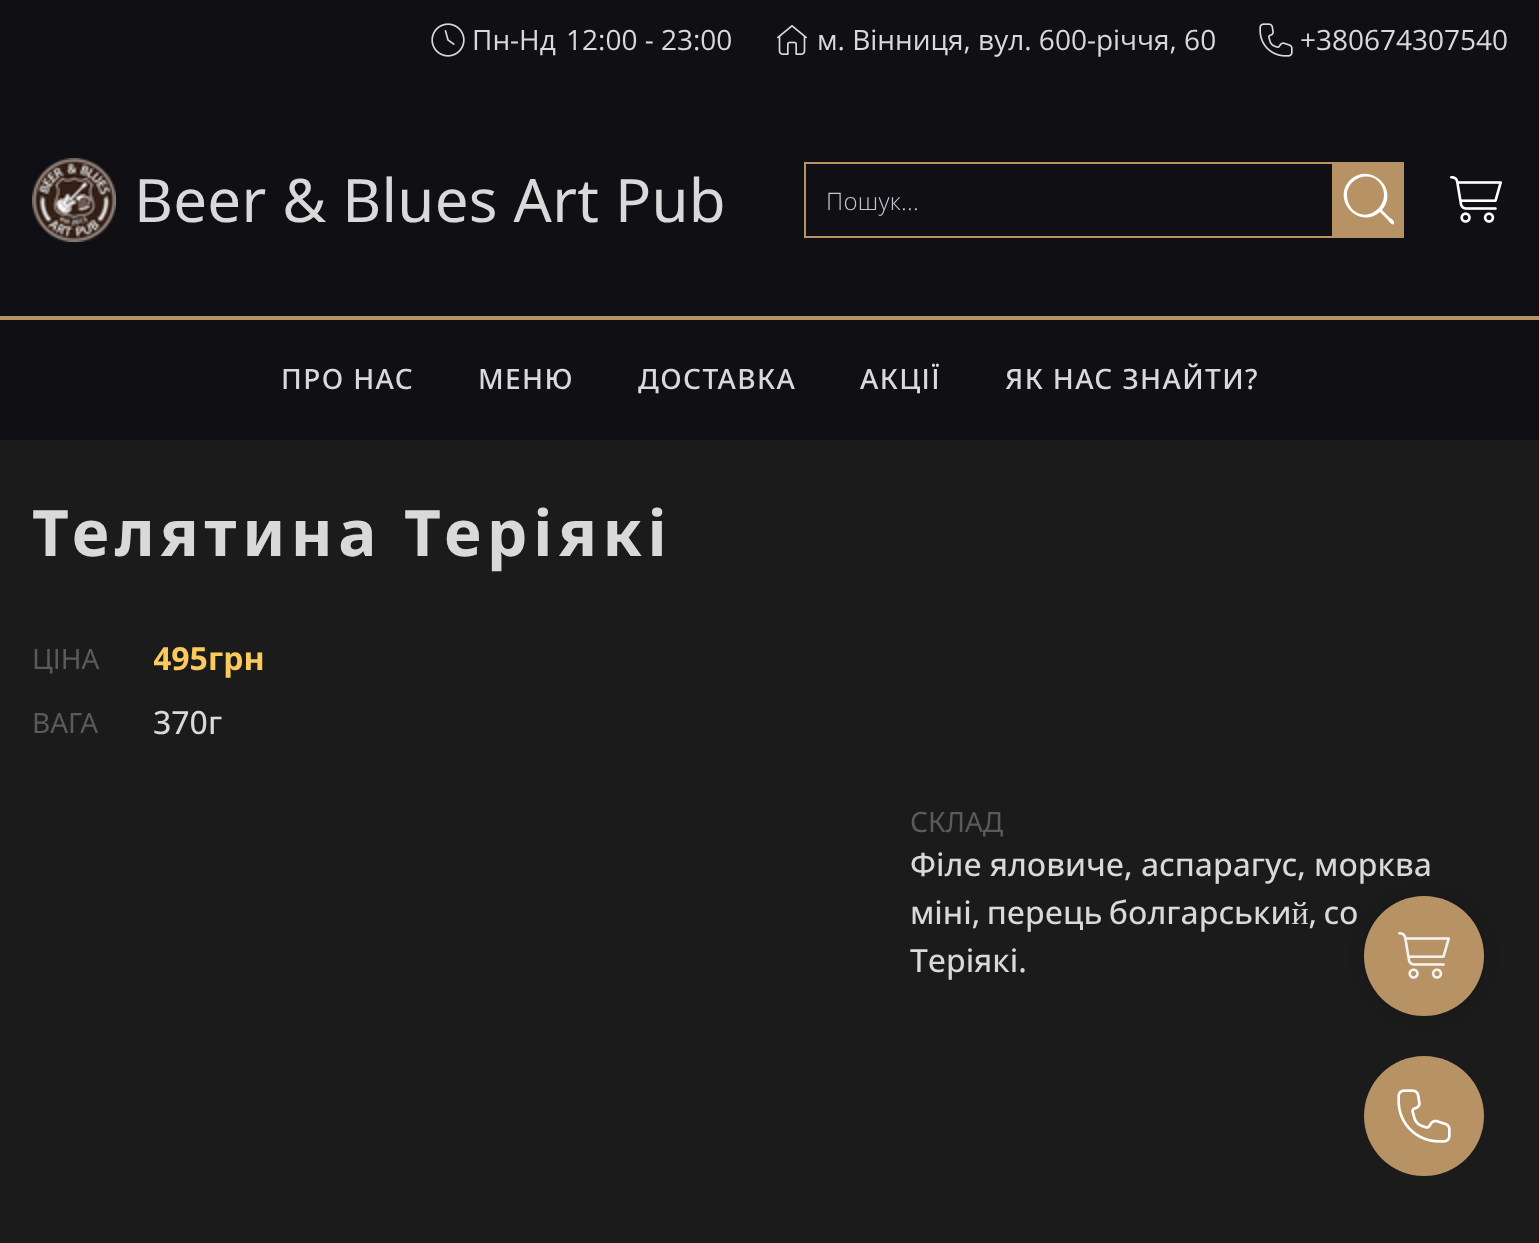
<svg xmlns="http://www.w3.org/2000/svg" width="1539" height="1243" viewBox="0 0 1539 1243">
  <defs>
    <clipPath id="clip1"><path d="M154 634h110v48H154z"/></clipPath>
  </defs>
  <rect width="100%" height="100%" fill="#1b1b1b"/>
  <path d="M0 0h1539v440H0z" fill="#100f14"/>
  <image x="431" y="23" width="34" height="34" href="img/1.png"/>
  <image x="777" y="25" width="30" height="30" href="img/2.png"/>
  <image x="1259" y="23" width="34" height="34" href="img/3.png"/>
  <image x="32" y="158" width="84" height="84" href="img/4.png"/>
  <path d="M805 163h598v74H805z" fill="none" stroke="#b79264" stroke-width="2"/>
  <path d="M1332 164h70v72H1332z" fill="#b79264"/>
  <path d="M1350 180C1370 161 1400 189 1382 210L1390 218C1391 218 1395 221 1394 224C1392 226 1388 220 1388 220L1380 212C1359 230 1331 200 1350 180ZM1352 209C1369 226 1395 201 1379 182C1368 170 1347 179 1347 195C1347 200 1349 205 1352 209Z" fill="#fff" fill-rule="evenodd"/>
  <image x="1450" y="176" width="52" height="47" href="img/5.png"/>
  <path d="M0 316h1539v4H0z" fill="#b79264"/>
  <rect x="1364" y="896" width="120" height="120" rx="60" fill="#0000001f" filter="blur(8px)"/>
  <circle cx="1424" cy="1116" r="60" fill="#b79264"/>
  <image x="1397" y="1089" width="54" height="54" href="img/7.png"/>
  <g font-family="Open Sans" font-size="28" fill="#d9d9d9">
    <text x="472" y="50">Пн-Нд</text>
    <text x="566" y="50">12:00 - 23:00</text>
    <text x="817" y="50">м. Вінниця, вул. 600-річчя, 60</text>
    <text x="1300" y="50">+380674307540</text>
  </g>
  <text x="134" y="222" font-family="Noto Sans" font-size="60" letter-spacing="0.25" fill="#d9d9d9">Beer &amp; Blues Art Pub</text>
  <text x="826" y="210" font-family="Open Sans" font-size="24" font-weight="300" letter-spacing="0.25" fill="#c2c7d0">Пошук...</text>
  <g font-family="Noto Sans" font-size="28" font-weight="500" letter-spacing="1.4" fill="#d9d9d9">
    <text x="281" y="389">ПРО НАС</text>
    <text x="478" y="389">МЕНЮ</text>
    <text x="638" y="389">ДОСТАВКА</text>
    <text x="860" y="389">АКЦІЇ</text>
    <text x="1005" y="389">ЯК НАС ЗНАЙТИ?</text>
  </g>
  <text x="32" y="556" font-family="Noto Sans" font-size="64" font-weight="bold" letter-spacing="5.5" fill="#d9d9d9">Телятина Теріякі</text>
  <text x="32" y="669" font-family="Noto Sans" font-size="28" fill="#5a5a5a">ЦІНА</text>
  <g clip-path="url(#clip1)">
    <text x="153" y="670" font-family="Open Sans" font-size="32" font-weight="bold" fill="#fbca5c">495</text>
  </g>
  <text x="208" y="670" font-family="Open Sans" font-size="32" font-weight="bold" fill="#fbca5c">грн</text>
  <text x="32" y="733" font-family="Noto Sans" font-size="28" fill="#5a5a5a">ВАГА</text>
  <text x="153" y="734" font-family="Open Sans" font-size="32" font-weight="500" fill="#d9d9d9">370г</text>
  <text x="910" y="832" font-family="Noto Sans" font-size="28" fill="#5a5a5a">СКЛАД</text>
  <g font-family="Open Sans" font-size="32" font-weight="500" fill="#d9d9d9">
    <text x="910" y="876">Філе яловиче, аспарагус, морква</text>
    <text x="910" y="924" word-spacing="-2">міні, перець болгарський, со</text>
    <text x="910" y="972">Теріякі.</text>
  </g>
  <circle cx="1424" cy="956" r="60" fill="#b79264"/>
  <image x="1398" y="932" width="52" height="47" href="img/6.png"/>
</svg>
